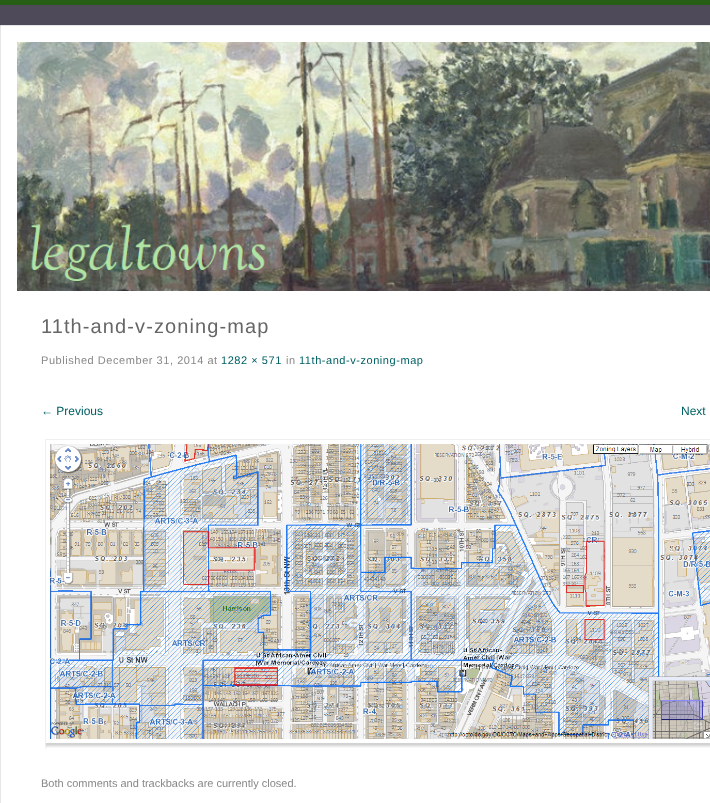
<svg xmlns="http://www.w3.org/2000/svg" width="710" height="803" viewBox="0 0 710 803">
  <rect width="100%" height="100%" fill="#4e4a59"/>
  <path d="M0 0h710v5H0z" fill="#265e15"/>
  <path d="M0.5 25.5h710v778H0.5z" fill="#fff" stroke="#e6e6e6"/>
  <image x="17" y="42" width="693" height="249" href="img/1.png"/>
  <path d="M45 439h665v1H45z" fill="#f0f0f0"/>
  <image x="45" y="444" width="665" height="304" href="img/2.png"/>
  <path d="M45 439h1v310H45z" fill="#eeeeeee6"/>
  <image x="50" y="444" width="660" height="295" href="img/3.png"/>
  <text x="41" y="333" font-family="Liberation Sans" font-size="20" letter-spacing="1.1" fill="#666">11th-and-v-zoning-map</text>
  <text x="41" y="364" font-family="Liberation Sans" font-size="11" letter-spacing="0.55" fill="#888">Published December 31, 2014 at</text>
  <text x="221" y="364" font-family="Liberation Sans" font-size="11" letter-spacing="0.55" fill="#016064">1282 × 571</text>
  <text x="286" y="364" font-family="Liberation Sans" font-size="11" letter-spacing="0.55" fill="#888">in</text>
  <text x="299" y="364" font-family="Liberation Sans" font-size="11" letter-spacing="0.55" fill="#016064">11th-and-v-zoning-map</text>
  <g font-family="Liberation Sans" font-size="12" fill="#016064">
    <text x="41" y="415">← Previous</text>
    <text x="681" y="415">Next</text>
  </g>
  <text x="41" y="787" font-family="Liberation Sans" font-size="11" fill="#888">Both comments and trackbacks are currently closed.</text>
</svg>
